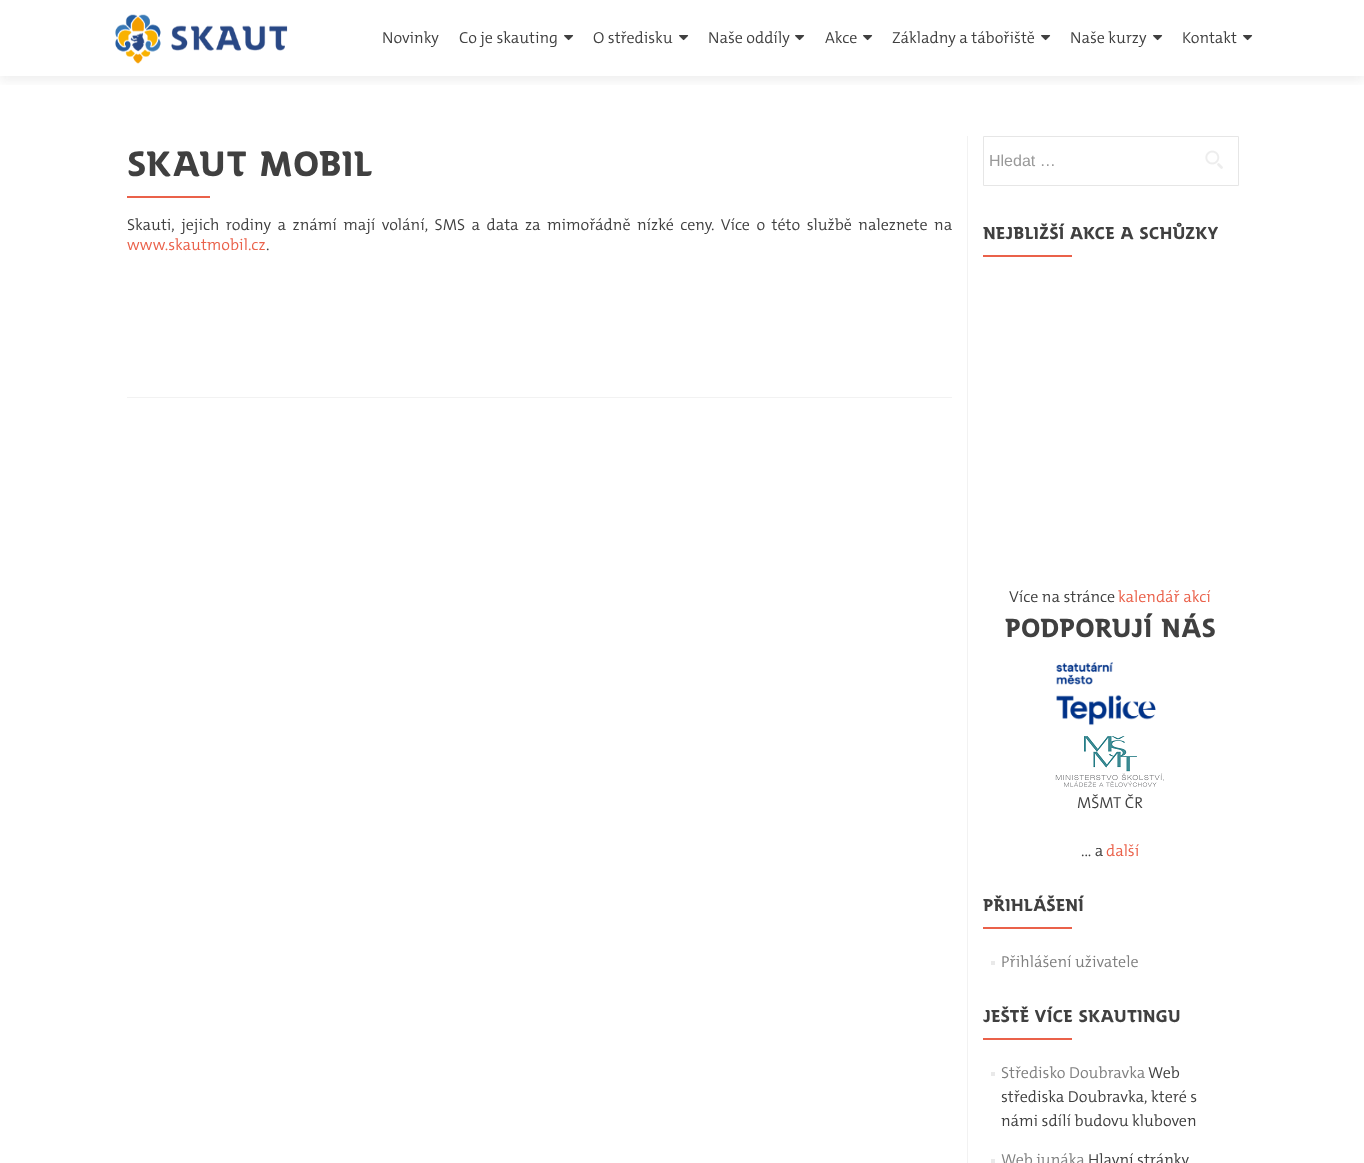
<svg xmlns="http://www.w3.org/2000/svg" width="1364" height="1163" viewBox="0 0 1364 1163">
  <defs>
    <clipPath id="clip1"><path d="M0 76h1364v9H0z"/></clipPath>
  </defs>
  <rect width="100%" height="100%" fill="#fff"/>
  <g clip-path="url(#clip1)">
    <path d="M0 5h1364v76H0z" fill="#32323214" filter="blur(5.5px)"/>
  </g>
  <image x="115" y="14" width="173" height="50" href="img/1.png"/>
  <image x="564" y="35" width="10" height="6" href="img/2.png"/>
  <image x="679" y="35" width="10" height="6" href="img/2.png"/>
  <image x="795" y="35" width="10" height="6" href="img/2.png"/>
  <image x="863" y="35" width="10" height="6" href="img/2.png"/>
  <image x="1041" y="35" width="10" height="6" href="img/2.png"/>
  <image x="1153" y="35" width="10" height="6" href="img/2.png"/>
  <image x="1243" y="35" width="10" height="6" href="img/2.png"/>
  <path d="M127 397h825v1H127z" fill="#f2f2f2"/>
  <path d="M127 196h83v2H127z" fill="#ea614a"/>
  <path d="M967 136h1v1027H967z" fill="#f2f2f2"/>
  <path d="M983.5 136.5h255v49H983.5z" fill="none" stroke="#e6e6e6"/>
  <image x="1205" y="150" width="18" height="19" href="img/3.png"/>
  <path d="M983 255h89v2H983z" fill="#ea614a"/>
  <image x="1056" y="662" width="100" height="64" href="img/4.png"/>
  <image x="1055" y="736" width="109" height="51" href="img/5.png"/>
  <path d="M983 927h89v2H983z" fill="#ea614a"/>
  <path d="M991 961h4v4H991z" fill="#e9e9e9"/>
  <path d="M983 1038h89v2H983z" fill="#ea614a"/>
  <path d="M991 1072h4v4H991z" fill="#e9e9e9"/>
  <path d="M991 1159h4v4H991z" fill="#e9e9e9"/>
  <g font-family="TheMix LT" font-size="16" font-weight="300" fill="#404040">
    <text x="382" y="43">Novinky</text>
    <text x="459" y="43">Co je skauting</text>
    <text x="593" y="43">O středisku</text>
    <text x="708" y="43">Naše oddíly</text>
    <text x="825" y="43">Akce</text>
    <text x="892" y="43">Základny a tábořiště</text>
    <text x="1070" y="43">Naše kurzy</text>
    <text x="1182" y="43">Kontakt</text>
  </g>
  <text x="127" y="176" font-family="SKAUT" font-size="35" font-weight="bold" fill="#404040">Skaut mobil</text>
  <text x="127" y="230" word-spacing="3" font-family="TheMix LT" font-size="16" font-weight="300" fill="#404040">Skauti, jejich rodiny a známí mají volání, SMS a data za mimořádně nízké ceny. Více o této službě naleznete na</text>
  <text x="127" y="250" font-family="TheMix LT" font-size="16" font-weight="300" fill="#ea614a">www.skautmobil.cz</text>
  <text x="266" y="250" font-family="TheMix LT" font-size="16" font-weight="300" fill="#404040">.</text>
  <text x="989" y="166" font-family="Liberation Sans" font-size="16" fill="#999">Hledat …</text>
  <text x="983" y="239" font-family="SKAUT" font-size="17" font-weight="bold" fill="#404040">NEJBLIŽŠÍ AKCE A SCHŮZKY</text>
  <text x="1009" y="602" font-family="TheMix LT" font-size="16" font-weight="300" fill="#404040">Více na stránce</text>
  <text x="1118" y="602" font-family="TheMix LT" font-size="16" font-weight="300" fill="#ea614a">kalendář akcí</text>
  <text x="1005" y="637" font-family="SKAUT" font-size="26" font-weight="bold" fill="#404040">PODPORUJÍ NÁS</text>
  <g font-family="TheMix LT" font-size="16" font-weight="300" fill="#404040">
    <text x="1077" y="808">MŠMT ČR</text>
    <text x="1081" y="856">... a</text>
  </g>
  <text x="1106" y="856" font-family="TheMix LT" font-size="16" font-weight="300" fill="#ea614a">další</text>
  <text x="983" y="911" font-family="SKAUT" font-size="17" font-weight="bold" fill="#404040">PŘIHLÁŠENÍ</text>
  <text x="1001" y="967" font-family="TheMix LT" font-size="16" font-weight="300" fill="#808080">Přihlášení uživatele</text>
  <text x="983" y="1022" font-family="SKAUT" font-size="17" font-weight="bold" fill="#404040">JEŠTĚ VÍCE SKAUTINGU</text>
  <text x="1001" y="1078" font-family="TheMix LT" font-size="16" font-weight="300" fill="#808080">Středisko Doubravka</text>
  <g font-family="TheMix LT" font-size="16" font-weight="300" fill="#404040">
    <text x="1148" y="1078">Web</text>
    <text x="1001" y="1102">střediska Doubravka, které s</text>
    <text x="1001" y="1126">námi sdílí budovu kluboven</text>
  </g>
  <text x="1001" y="1165" font-family="TheMix LT" font-size="16" font-weight="300" fill="#808080">Web junáka</text>
  <text x="1088" y="1165" font-family="TheMix LT" font-size="16" font-weight="300" fill="#404040">Hlavní stránky</text>
</svg>
